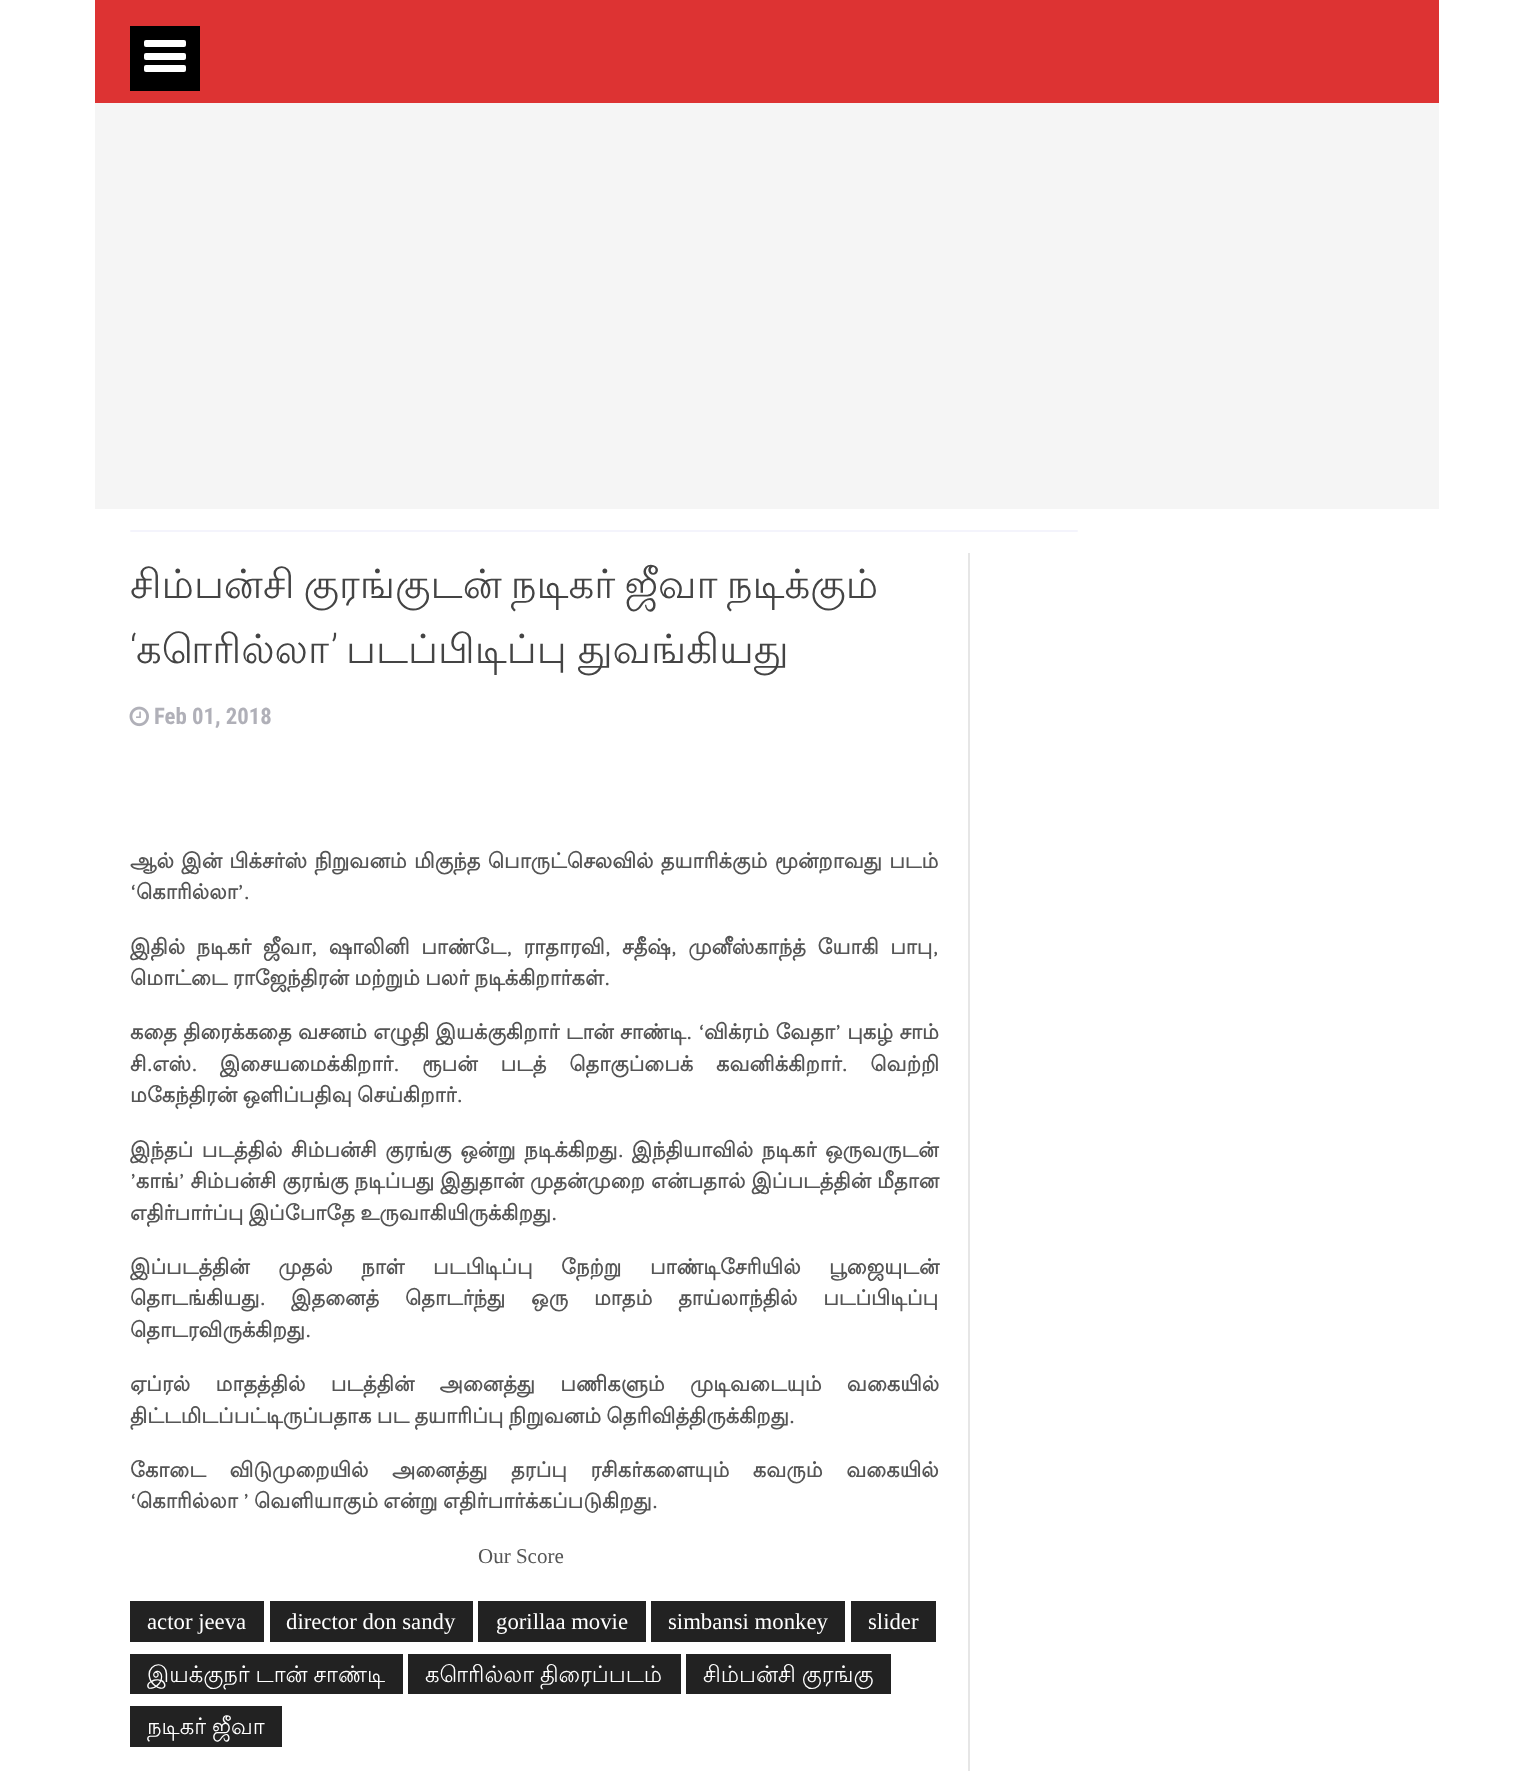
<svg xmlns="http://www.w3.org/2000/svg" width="1533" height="1771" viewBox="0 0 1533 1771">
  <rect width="100%" height="100%" fill="#fff"/>
  <path d="M95 0h1344v103H95z" fill="#d33"/>
  <path d="M130 26h70v65H130z" fill="#000"/>
  <rect x="144" y="40" width="42" height="7" rx="2" fill="#fff"/>
  <rect x="144" y="53" width="42" height="7" rx="2" fill="#fff"/>
  <rect x="144" y="65" width="42" height="7" rx="2" fill="#fff"/>
  <path d="M95 103h1344v406H95z" fill="#f5f5f5"/>
  <rect x="130" y="530" width="948" height="2" rx="1" fill="#f4f4fc"/>
  <path d="M968 553h2v1218H968z" fill="#e6e6e6"/>
  <image x="129" y="706" width="20" height="21" href="img/1.png"/>
  <path d="M130 1601h134v41H130z" fill="#222"/>
  <path d="M270 1601h203v41H270z" fill="#222"/>
  <path d="M478 1601h168v41H478z" fill="#222"/>
  <path d="M651 1601h194v41H651z" fill="#222"/>
  <path d="M851 1601h85v41H851z" fill="#222"/>
  <path d="M130 1654h273v40H130z" fill="#222"/>
  <path d="M408 1654h273v40H408z" fill="#222"/>
  <path d="M686 1654h205v40H686z" fill="#222"/>
  <path d="M130 1706h152v41H130z" fill="#222"/>
  <text x="130" y="598" word-spacing="-3" font-family="Lohit Tamil" font-size="40.25" fill="#444">சிம்பன்சி குரங்குடன் நடிகர் ஜீவா நடிக்கும்</text>
  <text x="130" y="663" font-family="Roboto Condensed" font-size="40.25" font-weight="300" fill="#444">‘</text>
  <text x="136" y="663" font-family="Lohit Tamil" font-size="40.25" fill="#444">கொரில்லா</text>
  <text x="331" y="663" font-family="Roboto Condensed" font-size="40.25" font-weight="300" fill="#444">’</text>
  <text x="346" y="663" word-spacing="-1" font-family="Lohit Tamil" font-size="40.25" fill="#444">படப்பிடிப்பு துவங்கியது</text>
  <text x="154" y="724" font-family="Roboto Condensed" font-size="22.75" font-weight="bold" fill="#b0b0b8">Feb 01, 2018</text>
  <g font-family="Lohit Tamil" font-size="21" font-weight="bold" fill="#555">
    <text x="130" y="868" word-spacing="1">ஆல் இன் பிக்சர்ஸ் நிறுவனம் மிகுந்த பொருட்செலவில் தயாரிக்கும் மூன்றாவது படம்</text>
    <text x="130" y="899">‘கொரில்லா’.</text>
    <text x="130" y="954" word-spacing="5.25">இதில் நடிகர் ஜீவா, ஷாலினி பாண்டே, ராதாரவி, சதீஷ், முனீஸ்காந்த் யோகி பாபு,</text>
    <text x="130" y="985" word-spacing="-1">மொட்டை ராஜேந்திரன் மற்றும் பலர் நடிக்கிறார்கள்.</text>
    <text x="130" y="1039">கதை திரைக்கதை வசனம் எழுதி இயக்குகிறார் டான் சாண்டி. ‘விக்ரம் வேதா’ புகழ் சாம்</text>
    <text x="130" y="1071" word-spacing="16.5">சி.எஸ். இசையமைக்கிறார். ரூபன் படத் தொகுப்பைக் கவனிக்கிறார். வெற்றி</text>
    <text x="130" y="1102" word-spacing="-1">மகேந்திரன் ஒளிப்பதிவு செய்கிறார்.</text>
    <text x="130" y="1157" word-spacing="2.25">இந்தப் படத்தில் சிம்பன்சி குரங்கு ஒன்று நடிக்கிறது. இந்தியாவில் நடிகர் ஒருவருடன்</text>
    <text x="130" y="1188" word-spacing="-0.25">’காங்’ சிம்பன்சி குரங்கு நடிப்பது இதுதான் முதன்முறை என்பதால் இப்படத்தின் மீதான</text>
    <text x="130" y="1220" word-spacing="-1">எதிர்பார்ப்பு இப்போதே உருவாகியிருக்கிறது.</text>
    <text x="130" y="1274" word-spacing="22.25">இப்படத்தின் முதல் நாள் படபிடிப்பு நேற்று பாண்டிசேரியில் பூஜையுடன்</text>
    <text x="130" y="1305" word-spacing="19.5">தொடங்கியது. இதனைத் தொடர்ந்து ஒரு மாதம் தாய்லாந்தில் படப்பிடிப்பு</text>
    <text x="130" y="1337">தொடரவிருக்கிறது.</text>
    <text x="130" y="1391" word-spacing="19">ஏப்ரல் மாதத்தில் படத்தின் அனைத்து பணிகளும் முடிவடையும் வகையில்</text>
    <text x="130" y="1423" word-spacing="-1">திட்டமிடப்பட்டிருப்பதாக பட தயாரிப்பு நிறுவனம் தெரிவித்திருக்கிறது.</text>
    <text x="130" y="1477" word-spacing="17.25">கோடை விடுமுறையில் அனைத்து தரப்பு ரசிகர்களையும் கவரும் வகையில்</text>
    <text x="130" y="1508" word-spacing="-1">‘கொரில்லா ’ வெளியாகும் என்று எதிர்பார்க்கப்படுகிறது.</text>
  </g>
  <text x="478" y="1563" font-family="Liberation Serif" font-size="21" fill="#555">Our Score</text>
  <g font-family="Liberation Serif" font-size="22.75" fill="#fff">
    <text x="147" y="1629">actor jeeva</text>
    <text x="286" y="1629">director don sandy</text>
    <text x="496" y="1629">gorillaa movie</text>
    <text x="668" y="1629">simbansi monkey</text>
    <text x="868" y="1629">slider</text>
  </g>
  <g font-family="Lohit Tamil" font-size="22.75" fill="#fff">
    <text x="147" y="1682" word-spacing="-1">இயக்குநர் டான் சாண்டி</text>
    <text x="425" y="1682" word-spacing="-1">கொரில்லா திரைப்படம்</text>
    <text x="703" y="1682" word-spacing="-1">சிம்பன்சி குரங்கு</text>
    <text x="147" y="1734" word-spacing="-1">நடிகர் ஜீவா</text>
  </g>
</svg>
